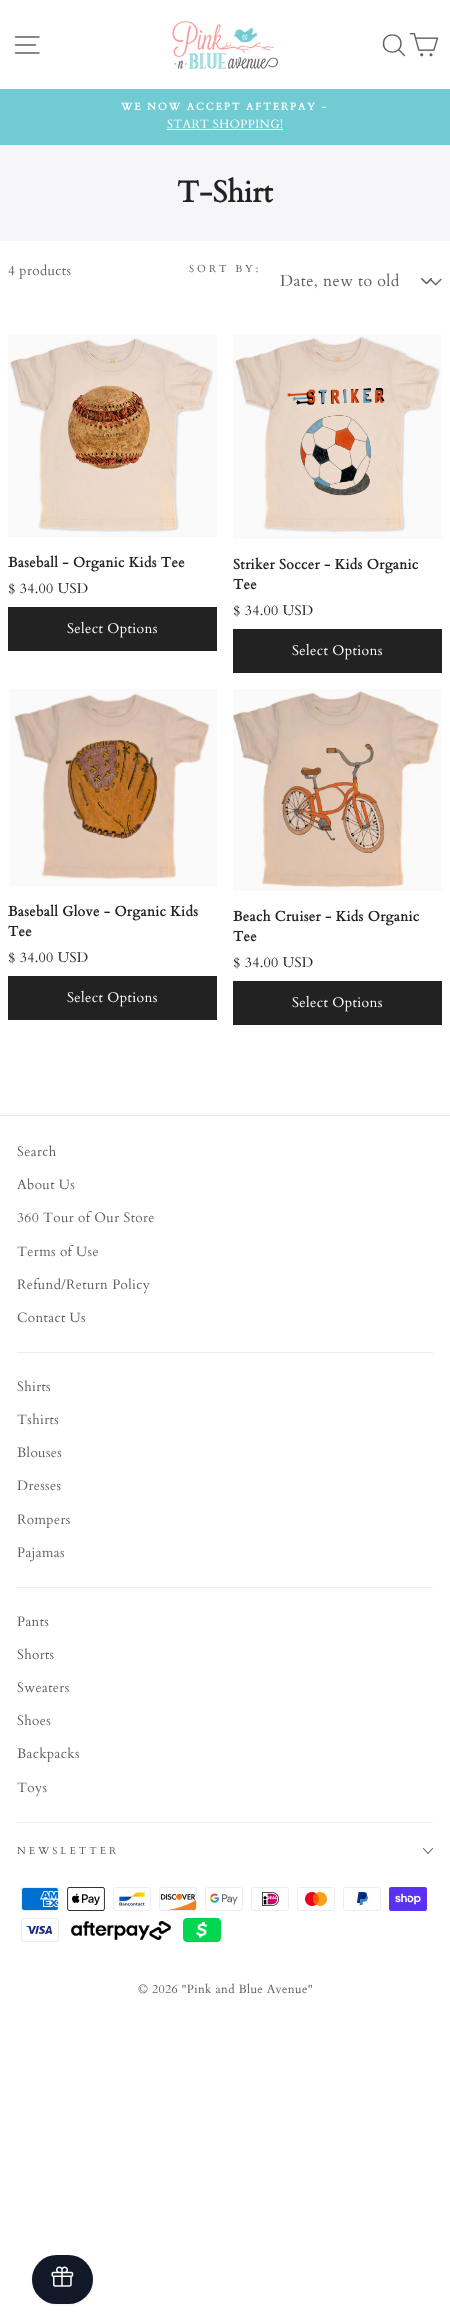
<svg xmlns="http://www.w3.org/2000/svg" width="450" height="2324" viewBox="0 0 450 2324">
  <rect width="100%" height="100%" fill="#fff"/>
  <path d="M15.5 37H39M15.5 45H35.5M15.5 53H39" fill="none" stroke="#5f6062" stroke-width="1.4" stroke-linecap="round" stroke-linejoin="round"/>
  <image x="172" y="21" width="106" height="48" href="img/1.png"/>
  <path d="M401 43.5C401 55 383.5 55 383.5 43.5C383.5 32 401 32 401 43.5ZM404.5 55.5L398.5 49.5" fill="none" stroke="#5f6062" stroke-width="1.4" stroke-linecap="round" stroke-linejoin="round"/>
  <image x="409" y="33" width="30" height="24" href="img/2.png"/>
  <path d="M0 89h450v56H0z" fill="#71cbd2"/>
  <path d="M167 129h116v1H167z" fill="#fff"/>
  <path d="M0 145h450v96H0z" fill="#f6f6f8"/>
  <image x="421" y="278" width="11" height="6" href="img/3.png"/>
  <image x="429" y="278" width="13" height="8" href="img/4.png"/>
  <image x="8" y="334" width="209" height="203" href="img/5.png"/>
  <path d="M8 607h209v44H8z" fill="#222"/>
  <image x="233" y="334" width="209" height="205" href="img/6.png"/>
  <path d="M233 629h209v44H233z" fill="#222"/>
  <image x="10" y="689" width="207" height="197" href="img/7.png"/>
  <path d="M8 976h209v44H8z" fill="#222"/>
  <image x="233" y="689" width="209" height="202" href="img/8.png"/>
  <path d="M233 981h209v44H233z" fill="#222"/>
  <path d="M0 1115h450v1H0z" fill="#e8e8e1"/>
  <path d="M17 1352h416v1H17z" fill="#ececec"/>
  <path d="M17 1587h416v1H17z" fill="#ececec"/>
  <path d="M17 1822h416v1H17z" fill="#ececec"/>
  <path d="M423.5 1848.5L428 1853.5L432.5 1848.5" fill="none" stroke="#5f6062" stroke-width="1.1" stroke-linecap="round" stroke-linejoin="round"/>
  <image x="21" y="1887" width="38" height="24" href="img/9.png"/>
  <image x="67" y="1887" width="38" height="24" href="img/10.png"/>
  <image x="113" y="1887" width="38" height="24" href="img/11.png"/>
  <image x="159" y="1887" width="38" height="24" href="img/12.png"/>
  <image x="205" y="1887" width="38" height="24" href="img/13.png"/>
  <image x="251" y="1887" width="38" height="24" href="img/14.png"/>
  <image x="297" y="1887" width="38" height="24" href="img/15.png"/>
  <image x="343" y="1887" width="38" height="24" href="img/16.png"/>
  <image x="389" y="1887" width="38" height="24" href="img/17.png"/>
  <image x="21" y="1918" width="38" height="24" href="img/18.png"/>
  <image x="71" y="1921" width="100" height="19" href="img/19.png"/>
  <image x="183" y="1918" width="38" height="24" href="img/20.png"/>
  <rect x="32" y="2256" width="61" height="49" rx="24.5" fill="#0000000d" filter="blur(1px)"/>
  <rect x="32" y="2255" width="61" height="49" rx="24.5" fill="#111827"/>
  <image x="51" y="2266" width="23" height="21" href="img/21.png"/>
  <text x="121" y="110" font-family="Cardo" font-size="10.2" font-weight="bold" letter-spacing="2" fill="#fff">WE NOW ACCEPT AFTERPAY -</text>
  <text x="167" y="128" font-family="Cardo" font-size="12" letter-spacing="0.35" fill="#fff">START SHOPPING!</text>
  <text x="177" y="202" font-family="Cardo" font-size="30" font-weight="bold" fill="#222">T-Shirt</text>
  <text x="8" y="275" font-family="Cardo" font-size="13.6" letter-spacing="0.35" fill="#5f6062">4 products</text>
  <text x="189" y="272" font-family="Cardo" font-size="10.2" letter-spacing="3" fill="#5f6062">SORT BY:</text>
  <text x="280" y="286" font-family="Cardo" font-size="16" letter-spacing="0.4" fill="#5f6062">Date, new to old</text>
  <text x="8" y="567" font-family="Cardo" font-size="14" font-weight="bold" letter-spacing="0.35" fill="#222">Baseball - Organic Kids Tee</text>
  <text x="8" y="593" font-family="Cardo" font-size="14" letter-spacing="0.35" fill="#222">$ 34.00 USD</text>
  <text x="67" y="633" font-family="Cardo" font-size="14" letter-spacing="0.35" fill="#fff">Select Options</text>
  <g font-family="Cardo" font-size="14" font-weight="bold" letter-spacing="0.35" fill="#222">
    <text x="233" y="569">Striker Soccer - Kids Organic</text>
    <text x="233" y="589">Tee</text>
  </g>
  <text x="233" y="615" font-family="Cardo" font-size="14" letter-spacing="0.35" fill="#222">$ 34.00 USD</text>
  <text x="292" y="655" font-family="Cardo" font-size="14" letter-spacing="0.35" fill="#fff">Select Options</text>
  <g font-family="Cardo" font-size="14" font-weight="bold" letter-spacing="0.35" fill="#222">
    <text x="8" y="916">Baseball Glove - Organic Kids</text>
    <text x="8" y="936">Tee</text>
  </g>
  <text x="8" y="962" font-family="Cardo" font-size="14" letter-spacing="0.35" fill="#222">$ 34.00 USD</text>
  <text x="67" y="1002" font-family="Cardo" font-size="14" letter-spacing="0.35" fill="#fff">Select Options</text>
  <g font-family="Cardo" font-size="14" font-weight="bold" letter-spacing="0.35" fill="#222">
    <text x="233" y="921">Beach Cruiser - Kids Organic</text>
    <text x="233" y="941">Tee</text>
  </g>
  <text x="233" y="967" font-family="Cardo" font-size="14" letter-spacing="0.35" fill="#222">$ 34.00 USD</text>
  <text x="292" y="1007" font-family="Cardo" font-size="14" letter-spacing="0.35" fill="#fff">Select Options</text>
  <g font-family="Cardo" font-size="13.6" letter-spacing="0.35" fill="#5f6062">
    <text x="17" y="1156">Search</text>
    <text x="17" y="1189">About Us</text>
    <text x="17" y="1222">360 Tour of Our Store</text>
    <text x="17" y="1256">Terms of Use</text>
    <text x="17" y="1289">Refund/Return Policy</text>
    <text x="17" y="1322">Contact Us</text>
    <text x="17" y="1391">Shirts</text>
    <text x="17" y="1424">Tshirts</text>
    <text x="17" y="1457">Blouses</text>
    <text x="17" y="1490">Dresses</text>
    <text x="17" y="1524">Rompers</text>
    <text x="17" y="1557">Pajamas</text>
    <text x="17" y="1626">Pants</text>
    <text x="17" y="1659">Shorts</text>
    <text x="17" y="1692">Sweaters</text>
    <text x="17" y="1725">Shoes</text>
    <text x="17" y="1758">Backpacks</text>
    <text x="17" y="1792">Toys</text>
  </g>
  <text x="17" y="1854" font-family="Cardo" font-size="10.2" letter-spacing="3" fill="#5f6062">NEWSLETTER</text>
  <text x="138" y="1993" font-family="Cardo" font-size="12" letter-spacing="0.35" fill="#5f6062">© 2026 "Pink and Blue Avenue"</text>
</svg>
